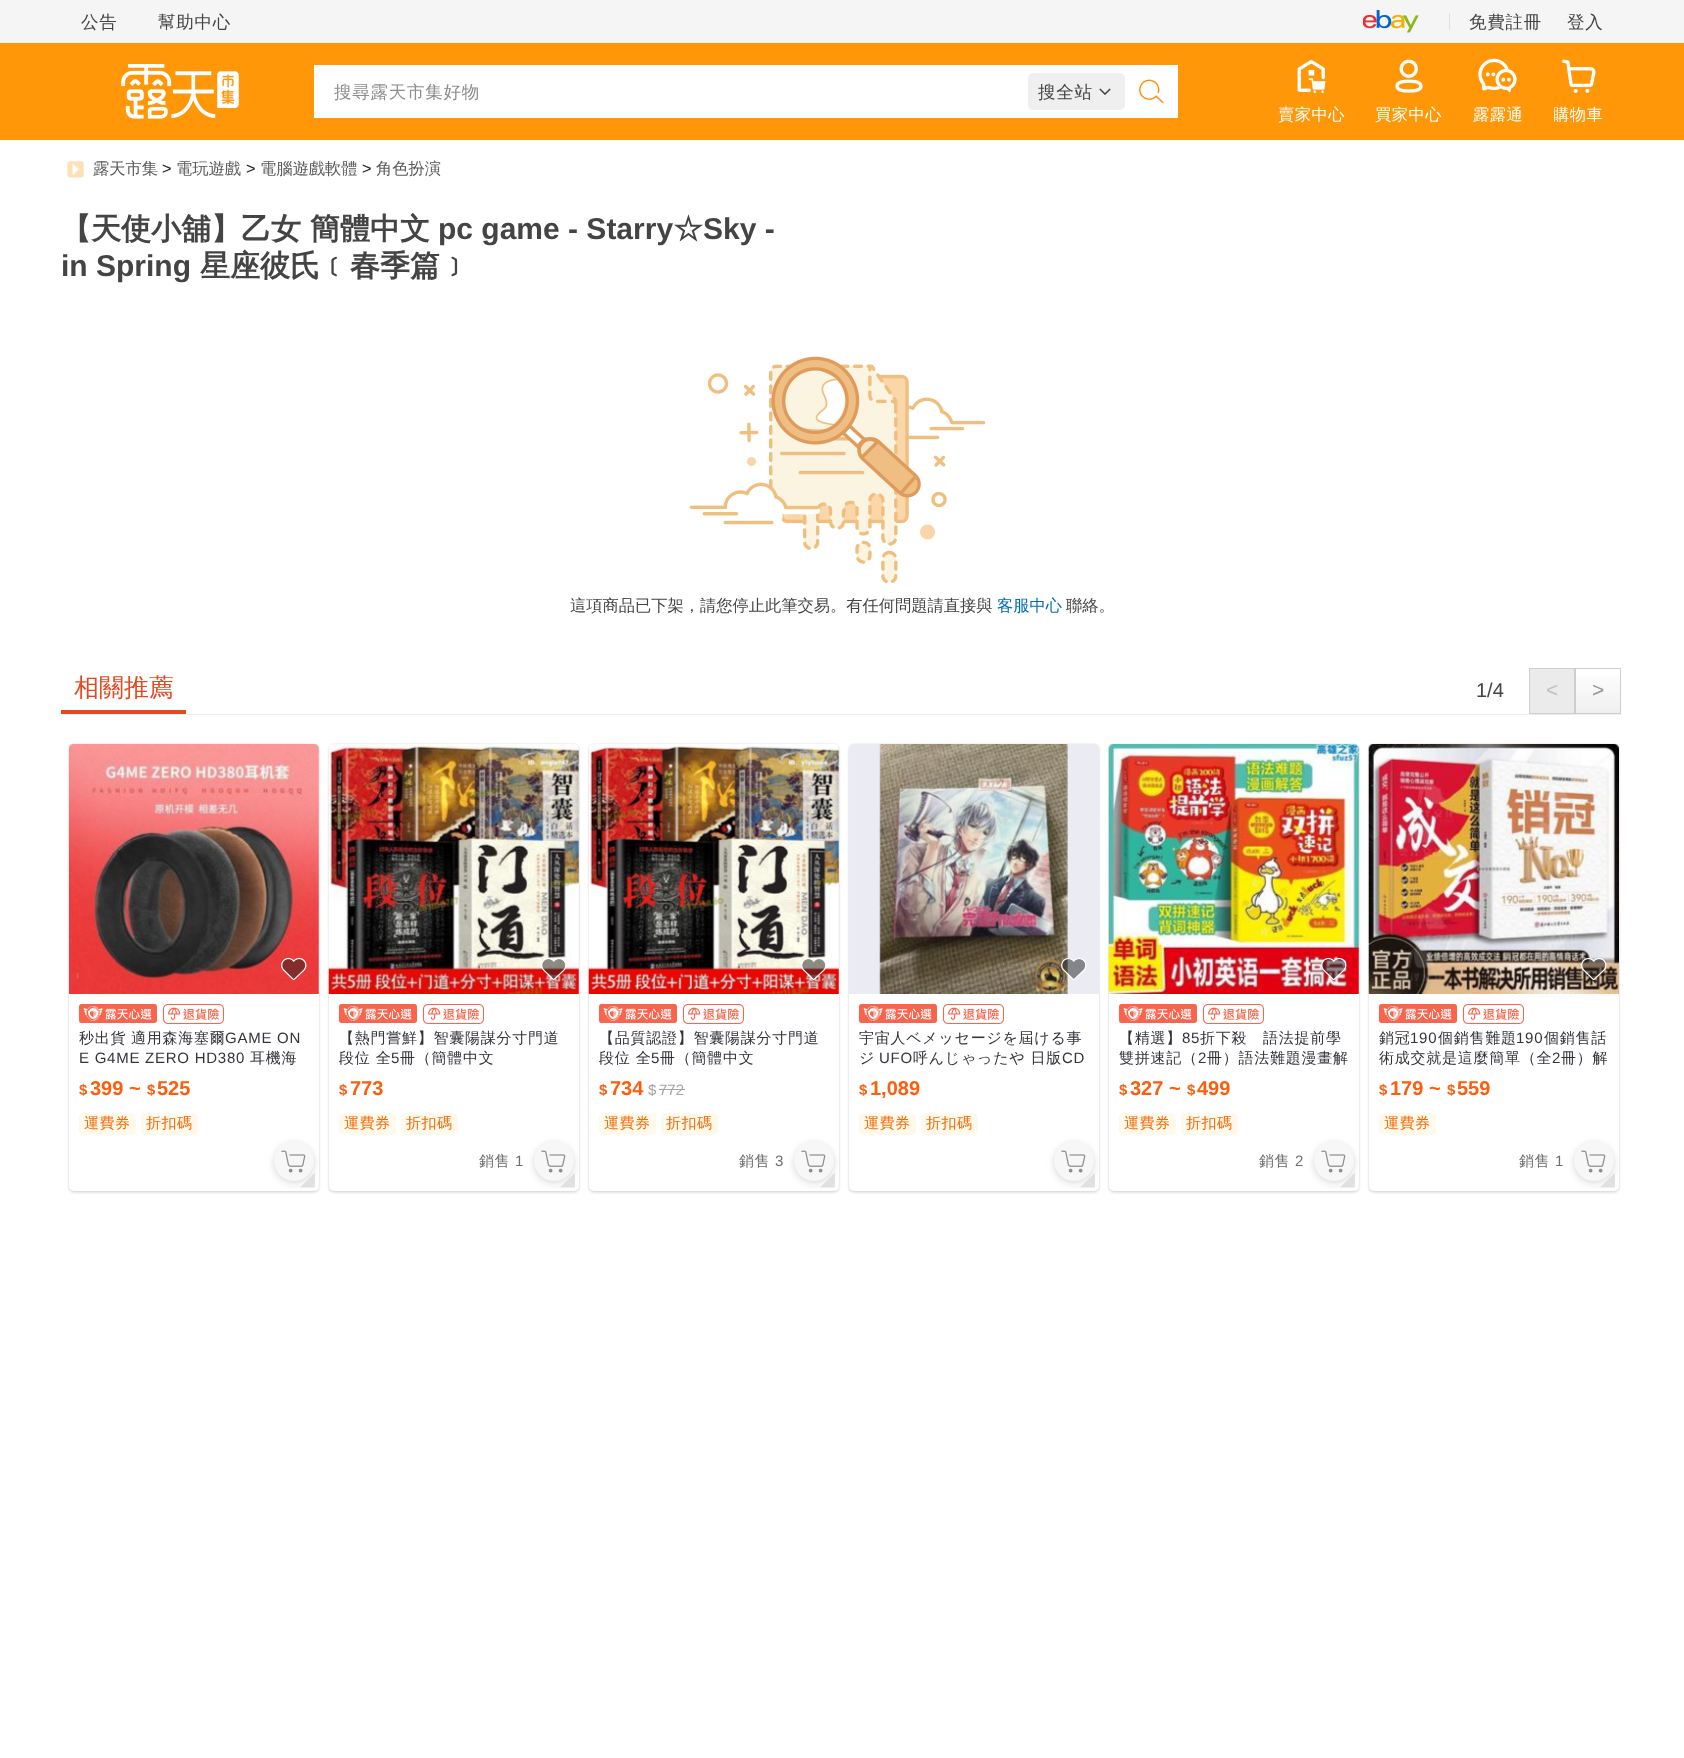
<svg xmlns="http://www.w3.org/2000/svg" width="1684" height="1758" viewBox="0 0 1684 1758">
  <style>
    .t1 { font: 500 17.5px WenQuanYi Zen Hei; letter-spacing: 0.75px; fill: #444; }
    .t2 { font: 500 17.5px WenQuanYi Zen Hei; letter-spacing: 0.75px; fill: #8d8d8d; }
    .t3 { font: 500 16.25px WenQuanYi Zen Hei; letter-spacing: 0.5px; fill: #fff; }
    .t4 { font: 500 16.25px WenQuanYi Zen Hei; fill: #595959; }
    .t5 { font: 16.25px Liberation Sans; fill: #222; }
    .t6 { font: bold 30px WenQuanYi Zen Hei; fill: #444; }
    .t7 { font: bold 30px Liberation Sans; fill: #444; }
    .t8 { font: 500 16.25px WenQuanYi Zen Hei; fill: #444; }
    .t9 { font: 500 16.25px WenQuanYi Zen Hei; fill: #006ab4; }
    .t10 { font: 500 25px WenQuanYi Zen Hei; fill: #e34a20; }
    .t11 { font: 20px Liberation Sans; fill: #444; }
    .t12 { font: 21px Liberation Sans; fill: #c1c1c1; }
    .t13 { font: 21px Liberation Sans; fill: #989898; }
    .t14 { font: 500 15px WenQuanYi Zen Hei; letter-spacing: 0.75px; fill: #33343b; }
    .t15 { font: 15px Liberation Sans; letter-spacing: 0.75px; fill: #33343b; }
    .t16 { font: bold 15px Liberation Sans; fill: #ff5d0e; }
    .t17 { font: bold 20px Liberation Sans; fill: #ff5d0e; }
    .t18 { font: 500 15px WenQuanYi Zen Hei; letter-spacing: 0.5px; fill: #f36b07; }
    .t19 { font: 500 15px WenQuanYi Zen Hei; letter-spacing: 0.5px; fill: #6e6e6e; }
    .t20 { font: 15px Liberation Sans; letter-spacing: 0.5px; fill: #6e6e6e; }
    .t21 { font: 15px Liberation Sans; fill: #a4a4a4; }
  </style>
  <defs>
    <clipPath id="clip1"><rect x="1554" y="104" width="50" height="22"/></clipPath>
    <linearGradient id="g1" gradientUnits="userSpaceOnUse" x1="1598" y1="669" x2="1598" y2="713"><stop offset="0" stop-color="#fff"/><stop offset="1" stop-color="#efefef"/></linearGradient>
  </defs>
  <rect width="100%" height="100%" fill="#fff"/>
  <rect x="0" y="0" width="1684" height="43" fill="#f5f5f5"/>
  <text x="81" y="28" class="t1">公告</text>
  <text x="158" y="28" class="t1">幫助中心</text>
  <image x="1363" y="10" width="56" height="23" href="images/1.png"/>
  <rect x="1449" y="13" width="1" height="17" fill="#e0e0e0"/>
  <text x="1469" y="28" class="t1">免費註冊</text>
  <text x="1567" y="28" class="t1">登入</text>
  <rect x="0" y="43" width="1684" height="97" fill="#ff9709"/>
  <image x="121" y="64" width="118" height="55" href="images/2.png"/>
  <rect x="314" y="65" width="864" height="53" fill="#fff"/>
  <text x="334" y="98" class="t2">搜尋露天市集好物</text>
  <rect x="1028" y="73" width="97" height="37" rx="5" fill="#efefef"/>
  <text x="1038" y="98" class="t1">搜全站</text>
  <image x="1099" y="88" width="12" height="7" href="images/3.png"/>
  <image x="1139" y="79" width="25" height="25" href="images/4.png"/>
  <image x="1297" y="60" width="29" height="33" href="images/5.png"/>
  <text x="1278" y="120" class="t3">賣家中心</text>
  <image x="1395" y="59" width="28" height="34" href="images/6.png"/>
  <text x="1375" y="120" class="t3">買家中心</text>
  <image x="1478" y="58" width="39" height="35" href="images/7.png"/>
  <text x="1473" y="120" class="t3">露露通</text>
  <image x="1562" y="59" width="34" height="34" href="images/8.png"/>
  <g clip-path="url(#clip1)">
    <text x="1553" y="120" class="t3">購物車</text>
  </g>
  <image x="67" y="161" width="17" height="17" href="images/9.png"/>
  <text x="93" y="174" class="t4">露天市集</text>
  <text x="162" y="174" class="t5">&gt;</text>
  <text x="176" y="174" class="t4">電玩遊戲</text>
  <text x="246" y="174" class="t5">&gt;</text>
  <text x="260" y="174" class="t4">電腦遊戲軟體</text>
  <text x="362" y="174" class="t5">&gt;</text>
  <text x="376" y="174" class="t4">角色扮演</text>
  <text x="61" y="239" class="t6">【天使小舖】乙女</text>
  <text x="310" y="239" class="t6">簡體中文</text>
  <text x="438" y="239" class="t7">pc game - Starry</text>
  <text x="673" y="239" class="t6">☆</text>
  <text x="703" y="239" class="t7">Sky -</text>
  <text x="61" y="276" class="t7">in Spring</text>
  <text x="200" y="276" class="t6">星座彼氏﹝春季篇﹞</text>
  <image x="689" y="356" width="297" height="228" href="images/10.png"/>
  <text x="570" y="611" class="t8">這項商品已下架，請您停止此筆交易。有任何問題請直接與</text>
  <text x="997" y="611" class="t9">客服中心</text>
  <text x="1066" y="611" class="t8">聯絡。</text>
  <rect x="61" y="714" width="1560" height="1" fill="#eee"/>
  <rect x="61" y="710" width="125" height="4" fill="#e34a20"/>
  <text x="74" y="696" class="t10">相關推薦</text>
  <text x="1476" y="697" class="t11">1/4</text>
  <rect x="1529.5" y="668.5" width="45" height="45" fill="#ebebeb" stroke="#cecece"/>
  <text x="1546" y="697" class="t12">&lt;</text>
  <rect x="1576" y="676" width="44" height="37" fill="url(#g1)"/>
  <rect x="1575.5" y="668.5" width="45" height="45" fill="none" stroke="#cecece"/>
  <text x="1592" y="697" class="t13">&gt;</text>
  <rect x="69" y="744" width="250" height="447" rx="5" fill="#0000001a" filter="blur(1px)"/>
  <rect x="69" y="745" width="250" height="448" rx="5" fill="#0000001a" filter="blur(1px)"/>
  <rect x="69" y="744" width="250" height="447" rx="5" fill="#fff"/>
  <path d="M74 744H314C317 744 319 746 319 749V994H69V749C69 746 71 744 74 744Z" fill="#ebecf3"/>
  <image x="69" y="744" width="250" height="250" href="images/11.png"/>
  <image x="281" y="957" width="26" height="23" href="images/12.png"/>
  <image x="79" y="1004" width="78" height="19" href="images/13.png"/>
  <image x="163" y="1004" width="61" height="20" href="images/14.png"/>
  <text x="79" y="1043" class="t14">秒出貨</text>
  <text x="131" y="1043" class="t14">適用森海塞爾</text>
  <text x="225" y="1043" class="t15">GAME ON</text>
  <text x="79" y="1063" class="t15">E G4ME ZERO HD380</text>
  <text x="250" y="1063" class="t14">耳機海</text>
  <text x="79" y="1095" class="t16">$</text>
  <text x="90" y="1095" class="t17">399 ~</text>
  <text x="147" y="1095" class="t16">$</text>
  <text x="157" y="1095" class="t17">525</text>
  <rect x="79" y="1113" width="57" height="22" rx="5" fill="#fff9eb"/>
  <text x="84" y="1128" class="t18">運費券</text>
  <rect x="141" y="1113" width="57" height="22" rx="5" fill="#fff9eb"/>
  <text x="146" y="1128" class="t18">折扣碼</text>
  <rect x="275" y="1143" width="38" height="37" rx="18.5" fill="#0000001a" filter="blur(2.5px)"/>
  <rect x="274" y="1144" width="40" height="40" rx="20" fill="#0000001a" filter="blur(4px)"/>
  <circle cx="294" cy="1161" r="20" fill="#f7f7f7"/>
  <image x="281" y="1150" width="25" height="23" href="images/15.png"/>
  <path d="M315 1172.5V1187.5L307.5 1180Z" fill="#e0e0e0"/>
  <path d="M315 1187.5H300L307.5 1180Z" fill="#e0e0e0"/>
  <rect x="329" y="744" width="250" height="447" rx="5" fill="#0000001a" filter="blur(1px)"/>
  <rect x="329" y="745" width="250" height="448" rx="5" fill="#0000001a" filter="blur(1px)"/>
  <rect x="329" y="744" width="250" height="447" rx="5" fill="#fff"/>
  <path d="M334 744H574C577 744 579 746 579 749V994H329V749C329 746 331 744 334 744Z" fill="#ebecf3"/>
  <image x="328" y="744" width="251" height="250" href="images/16.png"/>
  <image x="541" y="957" width="25" height="23" href="images/17.png"/>
  <image x="339" y="1004" width="78" height="19" href="images/13.png"/>
  <image x="423" y="1004" width="61" height="20" href="images/14.png"/>
  <text x="339" y="1043" class="t14">【熱門嘗鮮】智囊陽謀分寸門道</text>
  <text x="339" y="1063" class="t14">段位 全</text>
  <text x="391" y="1063" class="t15">5</text>
  <text x="400" y="1063" class="t14">冊（簡體中文</text>
  <text x="339" y="1095" class="t16">$</text>
  <text x="350" y="1095" class="t17">773</text>
  <rect x="339" y="1113" width="57" height="22" rx="5" fill="#fff9eb"/>
  <text x="344" y="1128" class="t18">運費券</text>
  <rect x="401" y="1113" width="57" height="22" rx="5" fill="#fff9eb"/>
  <text x="406" y="1128" class="t18">折扣碼</text>
  <text x="479" y="1166" class="t19">銷售</text>
  <text x="515" y="1166" class="t20">1</text>
  <rect x="535" y="1143" width="38" height="37" rx="18.5" fill="#0000001a" filter="blur(2.5px)"/>
  <rect x="534" y="1144" width="40" height="40" rx="20" fill="#0000001a" filter="blur(4px)"/>
  <circle cx="554" cy="1161" r="20" fill="#f7f7f7"/>
  <image x="541" y="1150" width="25" height="23" href="images/15.png"/>
  <path d="M575 1172.5V1187.5L567.5 1180Z" fill="#e0e0e0"/>
  <path d="M575 1187.5H560L567.5 1180Z" fill="#e0e0e0"/>
  <rect x="589" y="744" width="250" height="447" rx="5" fill="#0000001a" filter="blur(1px)"/>
  <rect x="589" y="745" width="250" height="448" rx="5" fill="#0000001a" filter="blur(1px)"/>
  <rect x="589" y="744" width="250" height="447" rx="5" fill="#fff"/>
  <path d="M594 744H834C837 744 839 746 839 749V994H589V749C589 746 591 744 594 744Z" fill="#ebecf3"/>
  <image x="588" y="744" width="251" height="250" href="images/18.png"/>
  <image x="801" y="957" width="25" height="23" href="images/19.png"/>
  <image x="599" y="1004" width="78" height="19" href="images/13.png"/>
  <image x="683" y="1004" width="61" height="20" href="images/14.png"/>
  <text x="599" y="1043" class="t14">【品質認證】智囊陽謀分寸門道</text>
  <text x="599" y="1063" class="t14">段位 全</text>
  <text x="651" y="1063" class="t15">5</text>
  <text x="660" y="1063" class="t14">冊（簡體中文</text>
  <text x="599" y="1095" class="t16">$</text>
  <text x="610" y="1095" class="t17">734</text>
  <text x="648" y="1095" class="t21">$</text>
  <text x="659" y="1095" class="t21">772</text>
  <rect x="659" y="1089" width="26" height="1" fill="#a4a4a4"/>
  <rect x="599" y="1113" width="57" height="22" rx="5" fill="#fff9eb"/>
  <text x="604" y="1128" class="t18">運費券</text>
  <rect x="661" y="1113" width="57" height="22" rx="5" fill="#fff9eb"/>
  <text x="666" y="1128" class="t18">折扣碼</text>
  <text x="739" y="1166" class="t19">銷售</text>
  <text x="775" y="1166" class="t20">3</text>
  <rect x="795" y="1143" width="38" height="37" rx="18.5" fill="#0000001a" filter="blur(2.5px)"/>
  <rect x="794" y="1144" width="40" height="40" rx="20" fill="#0000001a" filter="blur(4px)"/>
  <circle cx="814" cy="1161" r="20" fill="#f7f7f7"/>
  <image x="801" y="1150" width="25" height="23" href="images/15.png"/>
  <path d="M835 1172.5V1187.5L827.5 1180Z" fill="#e0e0e0"/>
  <path d="M835 1187.5H820L827.5 1180Z" fill="#e0e0e0"/>
  <rect x="849" y="744" width="250" height="447" rx="5" fill="#0000001a" filter="blur(1px)"/>
  <rect x="849" y="745" width="250" height="448" rx="5" fill="#0000001a" filter="blur(1px)"/>
  <rect x="849" y="744" width="250" height="447" rx="5" fill="#fff"/>
  <path d="M854 744H1094C1097 744 1099 746 1099 749V994H849V749C849 746 851 744 854 744Z" fill="#ebecf3"/>
  <image x="879" y="744" width="189" height="250" href="images/20.png"/>
  <image x="1061" y="958" width="26" height="22" href="images/21.png"/>
  <image x="859" y="1004" width="78" height="19" href="images/13.png"/>
  <image x="943" y="1004" width="61" height="20" href="images/14.png"/>
  <text x="859" y="1043" class="t14">宇宙人ベメッセージを屆ける事</text>
  <text x="859" y="1063" class="t14">ジ</text>
  <text x="879" y="1063" class="t15">UFO</text>
  <text x="913" y="1063" class="t14">呼んじゃったや 日版</text>
  <text x="1062" y="1063" class="t15">CD</text>
  <text x="859" y="1095" class="t16">$</text>
  <text x="870" y="1095" class="t17">1,089</text>
  <rect x="859" y="1113" width="57" height="22" rx="5" fill="#fff9eb"/>
  <text x="864" y="1128" class="t18">運費券</text>
  <rect x="921" y="1113" width="57" height="22" rx="5" fill="#fff9eb"/>
  <text x="926" y="1128" class="t18">折扣碼</text>
  <rect x="1055" y="1143" width="38" height="37" rx="18.5" fill="#0000001a" filter="blur(2.5px)"/>
  <rect x="1054" y="1144" width="40" height="40" rx="20" fill="#0000001a" filter="blur(4px)"/>
  <circle cx="1074" cy="1161" r="20" fill="#f7f7f7"/>
  <image x="1061" y="1150" width="25" height="23" href="images/15.png"/>
  <path d="M1095 1172.5V1187.5L1087.5 1180Z" fill="#e0e0e0"/>
  <path d="M1095 1187.5H1080L1087.5 1180Z" fill="#e0e0e0"/>
  <rect x="1109" y="744" width="250" height="447" rx="5" fill="#0000001a" filter="blur(1px)"/>
  <rect x="1109" y="745" width="250" height="448" rx="5" fill="#0000001a" filter="blur(1px)"/>
  <rect x="1109" y="744" width="250" height="447" rx="5" fill="#fff"/>
  <path d="M1114 744H1354C1357 744 1359 746 1359 749V994H1109V749C1109 746 1111 744 1114 744Z" fill="#ebecf3"/>
  <image x="1108" y="744" width="251" height="250" href="images/22.png"/>
  <image x="1321" y="957" width="26" height="23" href="images/23.png"/>
  <image x="1119" y="1004" width="78" height="19" href="images/13.png"/>
  <image x="1203" y="1004" width="61" height="20" href="images/14.png"/>
  <text x="1119" y="1043" class="t14">【精選】</text>
  <text x="1182" y="1043" class="t15">85</text>
  <text x="1200" y="1043" class="t14">折下殺　語法提前學</text>
  <text x="1119" y="1063" class="t14">雙拼速記（</text>
  <text x="1198" y="1063" class="t15">2</text>
  <text x="1207" y="1063" class="t14">冊）語法難題漫畫解</text>
  <text x="1119" y="1095" class="t16">$</text>
  <text x="1130" y="1095" class="t17">327 ~</text>
  <text x="1187" y="1095" class="t16">$</text>
  <text x="1197" y="1095" class="t17">499</text>
  <rect x="1119" y="1113" width="57" height="22" rx="5" fill="#fff9eb"/>
  <text x="1124" y="1128" class="t18">運費券</text>
  <rect x="1181" y="1113" width="57" height="22" rx="5" fill="#fff9eb"/>
  <text x="1186" y="1128" class="t18">折扣碼</text>
  <text x="1259" y="1166" class="t19">銷售</text>
  <text x="1295" y="1166" class="t20">2</text>
  <rect x="1315" y="1143" width="38" height="37" rx="18.5" fill="#0000001a" filter="blur(2.5px)"/>
  <rect x="1314" y="1144" width="40" height="40" rx="20" fill="#0000001a" filter="blur(4px)"/>
  <circle cx="1334" cy="1161" r="20" fill="#f7f7f7"/>
  <image x="1321" y="1150" width="25" height="23" href="images/15.png"/>
  <path d="M1355 1172.5V1187.5L1347.5 1180Z" fill="#e0e0e0"/>
  <path d="M1355 1187.5H1340L1347.5 1180Z" fill="#e0e0e0"/>
  <rect x="1369" y="744" width="250" height="447" rx="5" fill="#0000001a" filter="blur(1px)"/>
  <rect x="1369" y="745" width="250" height="448" rx="5" fill="#0000001a" filter="blur(1px)"/>
  <rect x="1369" y="744" width="250" height="447" rx="5" fill="#fff"/>
  <image x="1368" y="744" width="251" height="250" href="images/24.png"/>
  <image x="1581" y="957" width="26" height="23" href="images/25.png"/>
  <image x="1379" y="1004" width="78" height="19" href="images/13.png"/>
  <image x="1463" y="1004" width="61" height="20" href="images/14.png"/>
  <text x="1379" y="1043" class="t14">銷冠</text>
  <text x="1410" y="1043" class="t15">190</text>
  <text x="1438" y="1043" class="t14">個銷售難題</text>
  <text x="1516" y="1043" class="t15">190</text>
  <text x="1544" y="1043" class="t14">個銷售話</text>
  <text x="1379" y="1063" class="t14">術成交就是這麼簡單（全</text>
  <text x="1552" y="1063" class="t15">2</text>
  <text x="1561" y="1063" class="t14">冊）解</text>
  <text x="1379" y="1095" class="t16">$</text>
  <text x="1390" y="1095" class="t17">179 ~</text>
  <text x="1447" y="1095" class="t16">$</text>
  <text x="1457" y="1095" class="t17">559</text>
  <rect x="1379" y="1113" width="57" height="22" rx="5" fill="#fff9eb"/>
  <text x="1384" y="1128" class="t18">運費券</text>
  <text x="1519" y="1166" class="t19">銷售</text>
  <text x="1555" y="1166" class="t20">1</text>
  <rect x="1575" y="1143" width="38" height="37" rx="18.5" fill="#0000001a" filter="blur(2.5px)"/>
  <rect x="1574" y="1144" width="40" height="40" rx="20" fill="#0000001a" filter="blur(4px)"/>
  <circle cx="1594" cy="1161" r="20" fill="#f7f7f7"/>
  <image x="1581" y="1150" width="25" height="23" href="images/15.png"/>
  <path d="M1615 1172.5V1187.5L1607.5 1180Z" fill="#e0e0e0"/>
  <path d="M1615 1187.5H1600L1607.5 1180Z" fill="#e0e0e0"/>
</svg>
